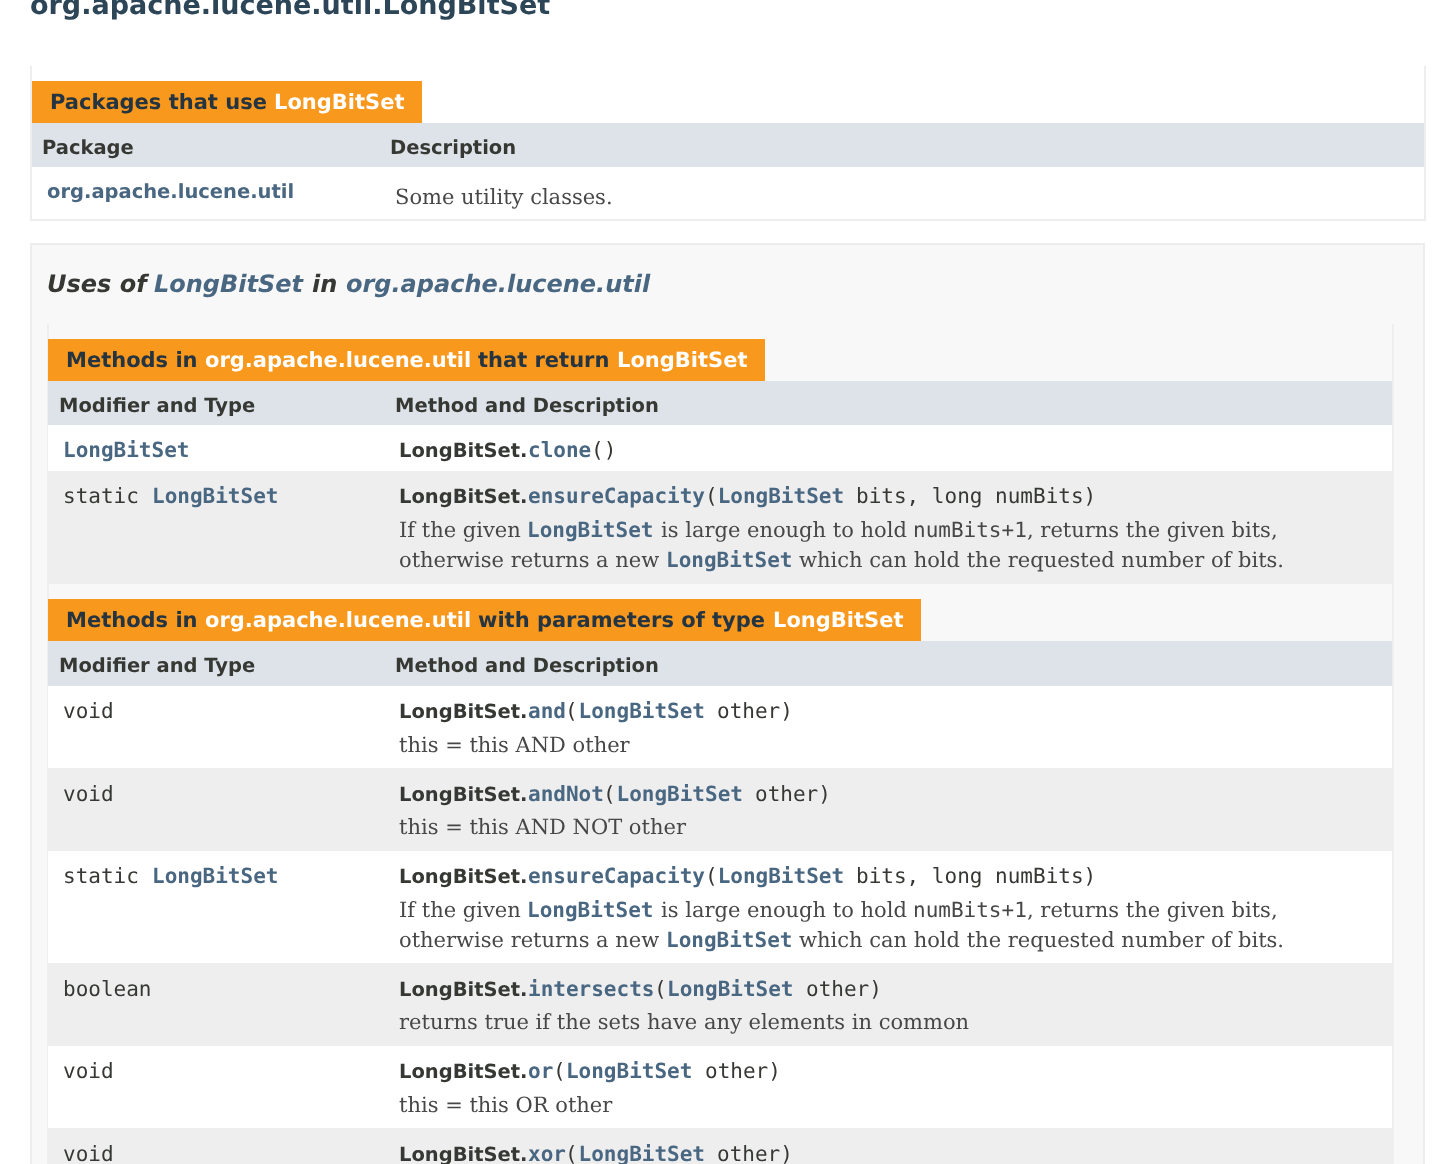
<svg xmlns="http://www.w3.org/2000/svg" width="1454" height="1164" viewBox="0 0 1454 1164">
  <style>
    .t1 { font: bold 27px DejaVu Sans; fill: #2c4557; }
    .t2 { font: bold 21px DejaVu Sans; fill: #253441; }
    .t3 { font: bold 21px DejaVu Sans; fill: #fff; }
    .t4 { font: bold 19.5px DejaVu Sans; fill: #353833; }
    .t5 { font: bold 19.5px DejaVu Sans; fill: #4a6782; }
    .t6 { font: 21px DejaVu Serif; fill: #474747; }
    .t7 { font: italic bold 24px DejaVu Sans; fill: #353833; }
    .t8 { font: italic bold 24px DejaVu Sans; fill: #4a6782; }
    .t9 { font: bold 21px DejaVu Sans Mono; fill: #4a6782; }
    .t10 { font: 21px DejaVu Sans Mono; fill: #353833; }
    .t11 { font: 21px DejaVu Sans Mono; fill: #474747; }
  </style>
  <rect width="100%" height="100%" fill="#fff"/>
  <text x="30" y="14" class="t1">org.apache.lucene.util.LongBitSet</text>
  <rect x="1424" y="66" width="2" height="155" fill="#eee"/>
  <rect x="30" y="219" width="1395" height="2" fill="#eee"/>
  <rect x="30" y="66" width="2" height="155" fill="#eee"/>
  <rect x="32" y="81" width="390" height="42" fill="#f8981d"/>
  <text x="50" y="109" class="t2">Packages that use</text>
  <text x="274" y="109" class="t3">LongBitSet</text>
  <rect x="32" y="123" width="1392" height="44" fill="#dee3e9"/>
  <text x="42" y="154" class="t4">Package</text>
  <text x="390" y="154" class="t4">Description</text>
  <text x="47" y="198" class="t5">org.apache.lucene.util</text>
  <text x="395" y="204" class="t6">Some utility classes.</text>
  <rect x="31" y="244" width="1393" height="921" fill="#f8f8f8" stroke="#ededed" stroke-width="2"/>
  <text x="47" y="292" class="t7">Uses of</text>
  <text x="154" y="292" class="t8">LongBitSet</text>
  <text x="312" y="292" class="t7">in</text>
  <text x="346" y="292" class="t8">org.apache.lucene.util</text>
  <rect x="1392" y="324" width="2" height="840" fill="#eee"/>
  <rect x="47" y="582" width="1347" height="2" fill="#eee"/>
  <rect x="47" y="324" width="2" height="840" fill="#eee"/>
  <rect x="48" y="339" width="717" height="42" fill="#f8981d"/>
  <text x="66" y="367" class="t2">Methods in</text>
  <text x="205" y="367" class="t3">org.apache.lucene.util</text>
  <text x="478" y="367" class="t2">that return</text>
  <text x="617" y="367" class="t3">LongBitSet</text>
  <rect x="48" y="381" width="1344" height="44" fill="#dee3e9"/>
  <text x="59" y="412" class="t4">Modifier and Type</text>
  <text x="395" y="412" class="t4">Method and Description</text>
  <rect x="48" y="425" width="1344" height="46" fill="#fff"/>
  <text x="63" y="457" class="t9">LongBitSet</text>
  <text x="399" y="457" class="t4">LongBitSet.</text>
  <text x="528" y="457" class="t9">clone</text>
  <text x="591" y="457" class="t10">()</text>
  <rect x="49" y="471" width="1343" height="111" fill="#eeeeef"/>
  <text x="63" y="503" class="t10">static</text>
  <text x="152" y="503" class="t9">LongBitSet</text>
  <text x="528" y="503" class="t9">ensureCapacity LongBitSet</text>
  <text x="856" y="503" class="t10">bits, long numBits)</text>
  <text x="399" y="503" class="t4">LongBitSet.</text>
  <text x="705" y="503" class="t10">(</text>
  <text x="399" y="537" class="t6">If the given</text>
  <text x="527" y="537" class="t9">LongBitSet</text>
  <text x="661" y="537" class="t6">is large enough to hold</text>
  <text x="913" y="537" class="t11">numBits+1</text>
  <text x="1027" y="537" class="t6">, returns the given bits,</text>
  <text x="399" y="567" class="t6">otherwise returns a new</text>
  <text x="666" y="567" class="t9">LongBitSet</text>
  <text x="799" y="567" class="t6">which can hold the requested number of bits.</text>
  <rect x="48" y="599" width="873" height="42" fill="#f8981d"/>
  <text x="66" y="627" class="t2">Methods in</text>
  <text x="205" y="627" class="t3">org.apache.lucene.util</text>
  <text x="478" y="627" class="t2">with parameters of type</text>
  <text x="773" y="627" class="t3">LongBitSet</text>
  <rect x="48" y="641" width="1344" height="45" fill="#dee3e9"/>
  <text x="59" y="672" class="t4">Modifier and Type</text>
  <text x="395" y="672" class="t4">Method and Description</text>
  <rect x="48" y="686" width="1344" height="82" fill="#fff"/>
  <text x="63" y="718" class="t10">void</text>
  <text x="528" y="718" class="t9">and LongBitSet</text>
  <text x="399" y="718" class="t4">LongBitSet.</text>
  <text x="565" y="718" class="t10">(</text>
  <text x="717" y="718" class="t10">other)</text>
  <text x="399" y="752" class="t6">this = this AND other</text>
  <rect x="49" y="768" width="1343" height="83" fill="#eeeeef"/>
  <text x="63" y="801" class="t10">void</text>
  <text x="528" y="801" class="t9">andNot LongBitSet</text>
  <text x="399" y="801" class="t4">LongBitSet.</text>
  <text x="603" y="801" class="t10">(</text>
  <text x="755" y="801" class="t10">other)</text>
  <text x="399" y="834" class="t6">this = this AND NOT other</text>
  <rect x="48" y="851" width="1344" height="112" fill="#fff"/>
  <text x="63" y="883" class="t10">static</text>
  <text x="152" y="883" class="t9">LongBitSet</text>
  <text x="528" y="883" class="t9">ensureCapacity LongBitSet</text>
  <text x="856" y="883" class="t10">bits, long numBits)</text>
  <text x="399" y="883" class="t4">LongBitSet.</text>
  <text x="705" y="883" class="t10">(</text>
  <text x="399" y="917" class="t6">If the given</text>
  <text x="527" y="917" class="t9">LongBitSet</text>
  <text x="661" y="917" class="t6">is large enough to hold</text>
  <text x="913" y="917" class="t11">numBits+1</text>
  <text x="1027" y="917" class="t6">, returns the given bits,</text>
  <text x="399" y="947" class="t6">otherwise returns a new</text>
  <text x="666" y="947" class="t9">LongBitSet</text>
  <text x="799" y="947" class="t6">which can hold the requested number of bits.</text>
  <rect x="49" y="963" width="1343" height="83" fill="#eeeeef"/>
  <text x="63" y="996" class="t10">boolean</text>
  <text x="528" y="996" class="t9">intersects LongBitSet</text>
  <text x="399" y="996" class="t4">LongBitSet.</text>
  <text x="654" y="996" class="t10">(</text>
  <text x="806" y="996" class="t10">other)</text>
  <text x="399" y="1029" class="t6">returns true if the sets have any elements in common</text>
  <rect x="48" y="1046" width="1344" height="82" fill="#fff"/>
  <text x="63" y="1078" class="t10">void</text>
  <text x="528" y="1078" class="t9">or LongBitSet</text>
  <text x="399" y="1078" class="t4">LongBitSet.</text>
  <text x="553" y="1078" class="t10">(</text>
  <text x="705" y="1078" class="t10">other)</text>
  <text x="399" y="1112" class="t6">this = this OR other</text>
  <rect x="49" y="1128" width="1343" height="36" fill="#eeeeef"/>
  <text x="63" y="1161" class="t10">void</text>
  <text x="528" y="1161" class="t9">xor LongBitSet</text>
  <text x="399" y="1161" class="t4">LongBitSet.</text>
  <text x="565" y="1161" class="t10">(</text>
  <text x="717" y="1161" class="t10">other)</text>
</svg>
